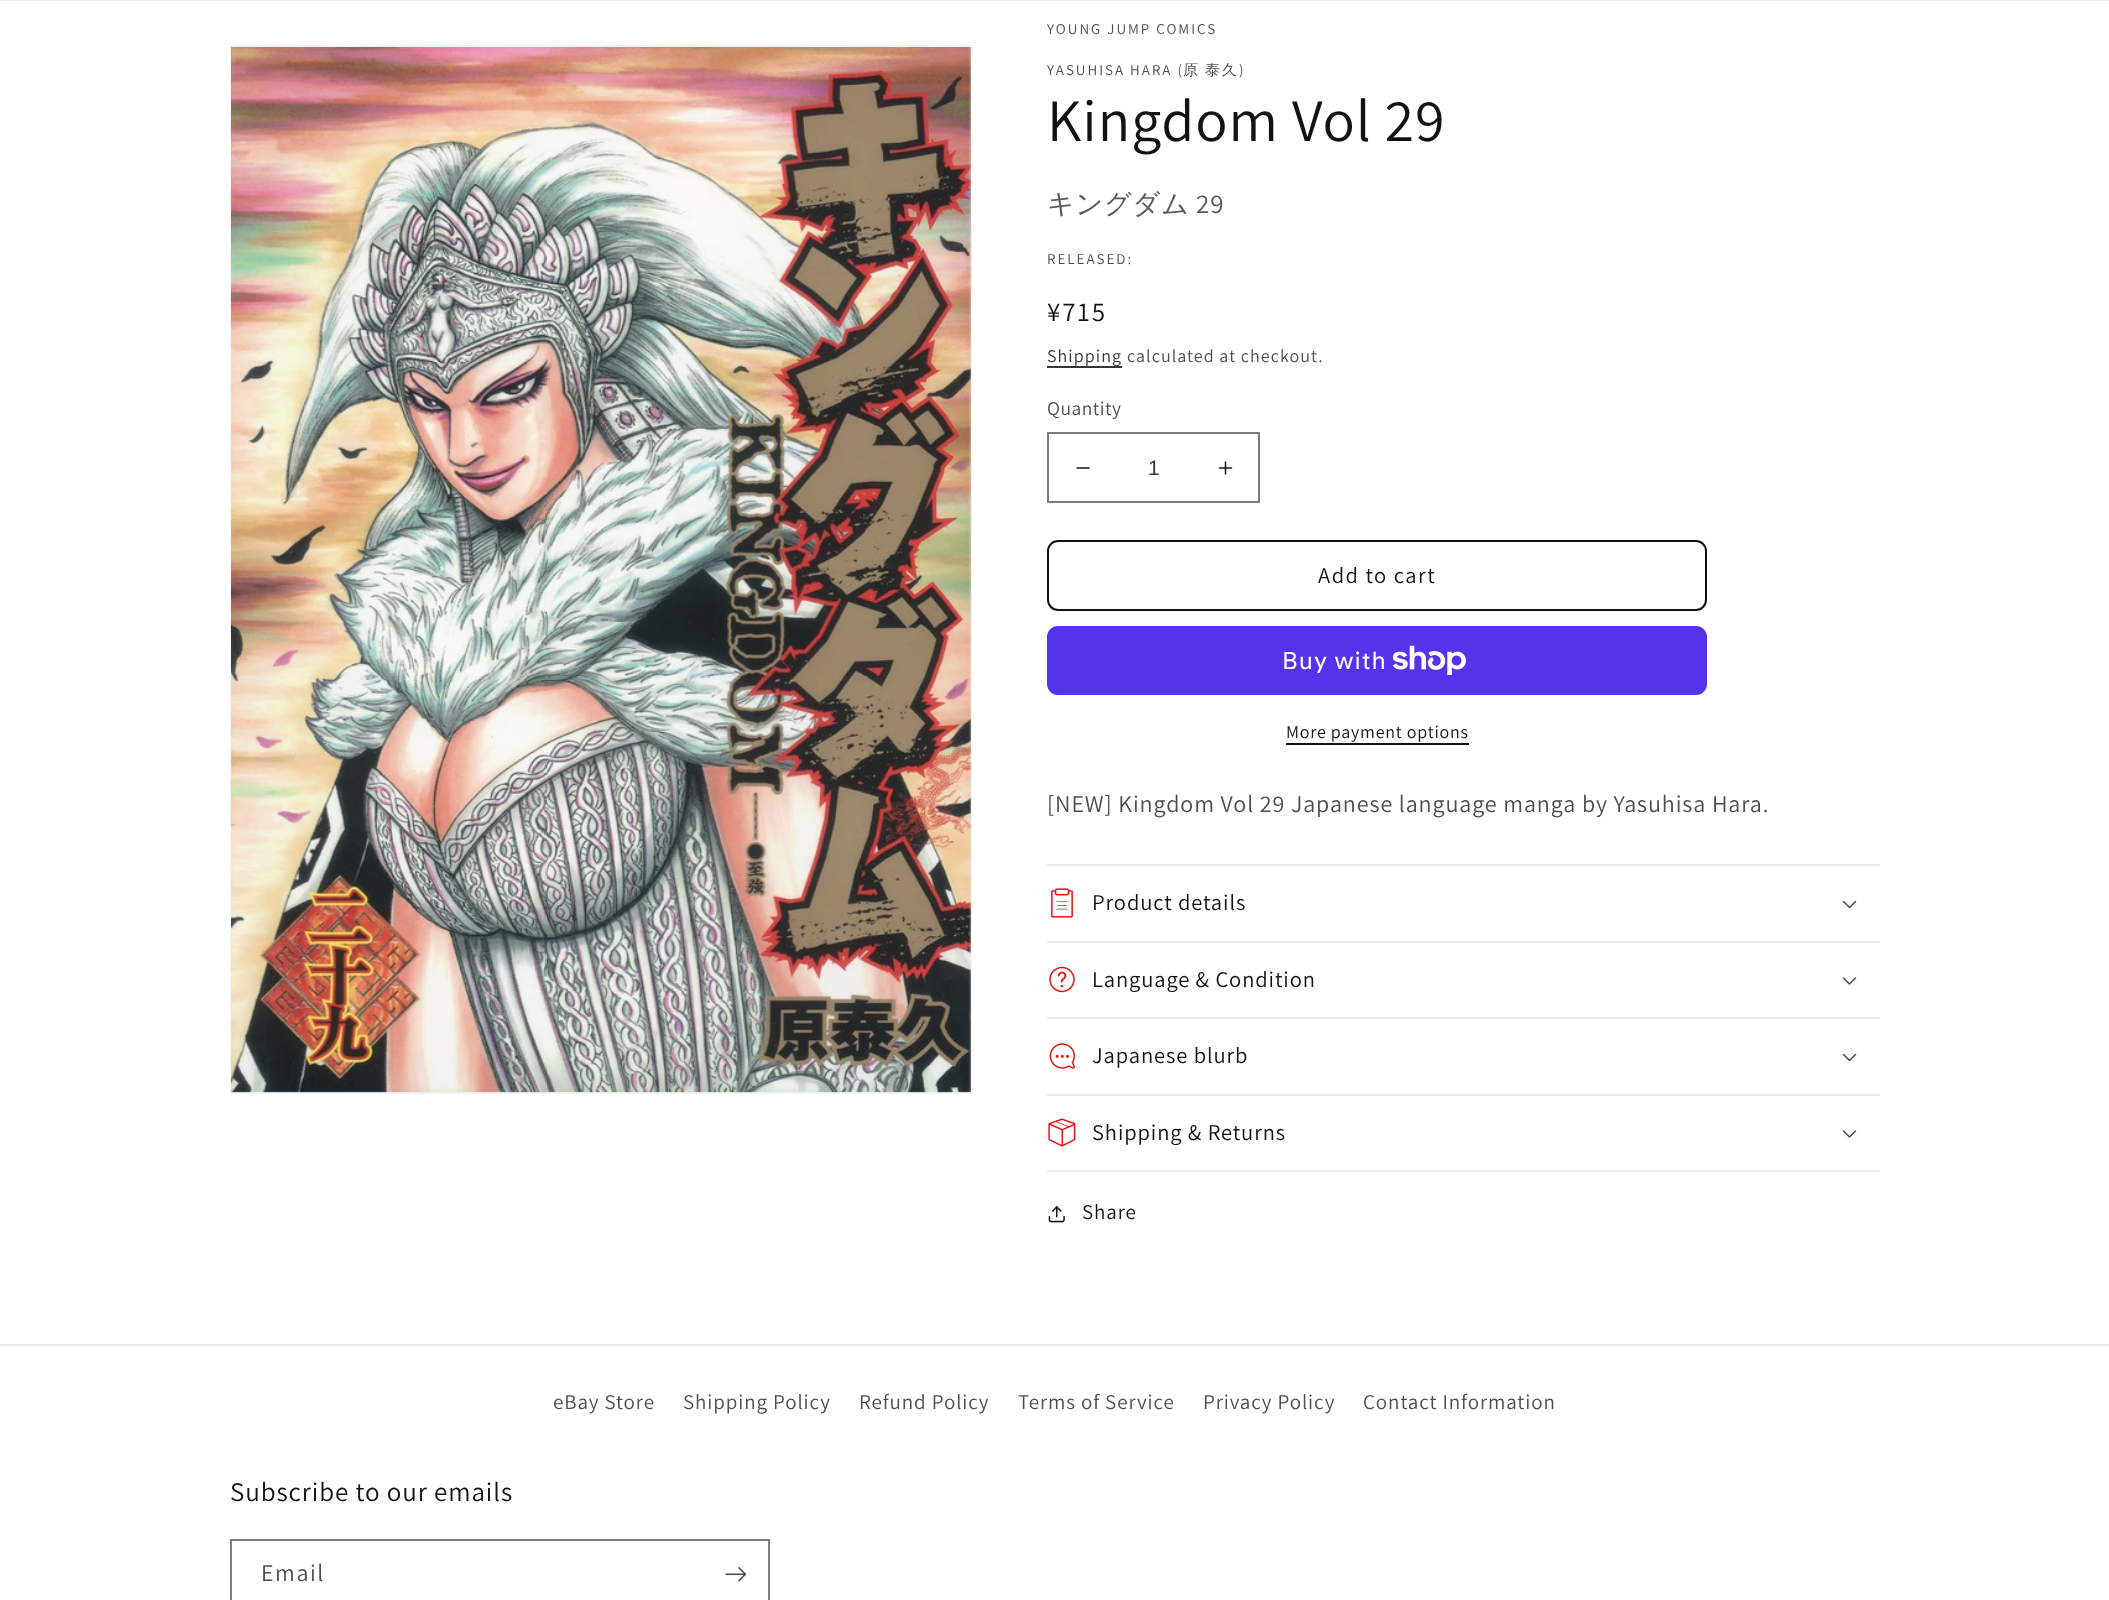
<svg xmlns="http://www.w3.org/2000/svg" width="2109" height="1600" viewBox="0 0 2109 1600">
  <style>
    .t1 { font: 15px Assistant; letter-spacing: 2px; fill: #4d4d4d; }
    .t2 { font: 500 15px WenQuanYi Zen Hei; letter-spacing: 2px; fill: #4d4d4d; }
    .t3 { font: 60px Assistant; letter-spacing: 0.9px; fill: #121212; }
    .t4 { font: 500 27px WenQuanYi Zen Hei; letter-spacing: 0.9px; fill: #595959; }
    .t5 { font: 27px Assistant; letter-spacing: 0.9px; fill: #595959; }
    .t6 { font: 27px Assistant; letter-spacing: 2px; fill: #121212; }
    .t7 { font: 18px Assistant; letter-spacing: 1.05px; fill: #353535; }
    .t8 { font: 18px Assistant; letter-spacing: 1.05px; fill: #4d4d4d; }
    .t9 { font: 19.5px Assistant; letter-spacing: 0.5px; fill: #4d4d4d; }
    .t10 { font: 21px Liberation Sans; fill: #353535; }
    .t11 { font: 22.5px Assistant; letter-spacing: 1.5px; fill: #121212; }
    .t12 { font: 24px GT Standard; letter-spacing: 0.9px; fill: #fff; }
    .t13 { font: 18px Assistant; letter-spacing: 0.75px; fill: #121212; }
    .t14 { font: 24px Assistant; letter-spacing: 0.9px; fill: #4d4d4d; }
    .t15 { font: 22.5px Assistant; letter-spacing: 0.9px; fill: #121212; }
    .t16 { font: 21px Assistant; letter-spacing: 0.9px; fill: #121212; }
    .t17 { font: 21px Assistant; letter-spacing: 0.9px; fill: #4d4d4d; }
    .t18 { font: 27px Assistant; letter-spacing: 0.9px; fill: #121212; }
    .t19 { font: 24px Assistant; letter-spacing: 1.5px; fill: #4d4d4d; }
  </style>
  <rect width="100%" height="100%" fill="#fff"/>
  <rect x="0" y="0" width="2109" height="1" fill="#ececec"/>
  <rect x="231" y="46" width="740" height="1047" fill="none" stroke="#f3f3f3" stroke-width="2"/>
  <image x="231" y="47" width="740" height="1046" href="images/1.png"/>
  <text x="1047" y="34" class="t1">YOUNG JUMP COMICS</text>
  <text x="1047" y="75" class="t1">YASUHISA HARA (</text>
  <text x="1183" y="75" class="t2">原</text>
  <text x="1205" y="75" class="t2">泰久</text>
  <text x="1239" y="75" class="t1">)</text>
  <text x="1047" y="141" class="t3">Kingdom Vol 29</text>
  <text x="1047" y="213" class="t4">キングダム</text>
  <text x="1196" y="213" class="t5">29</text>
  <text x="1047" y="264" class="t1">RELEASED:</text>
  <text x="1047" y="321" class="t6">¥715</text>
  <rect x="1047" y="366" width="75" height="2" fill="#363636"/>
  <text x="1047" y="362" class="t7">Shipping</text>
  <text x="1127" y="362" class="t8">calculated at checkout.</text>
  <text x="1047" y="415" class="t9">Quantity</text>
  <image x="1076" y="467" width="14" height="2" href="images/2.png"/>
  <image x="1218" y="461" width="15" height="14" href="images/3.png"/>
  <rect x="1048" y="433" width="211" height="69" fill="none" stroke="#7d7d7d" stroke-width="2"/>
  <text x="1148" y="475" class="t10">1</text>
  <rect x="1048" y="541" width="658" height="69" rx="10" fill="none" stroke="#121212" stroke-width="2"/>
  <text x="1318" y="583" class="t11">Add to cart</text>
  <rect x="1047" y="626" width="660" height="69" rx="11" fill="#5433eb"/>
  <text x="1282" y="669" class="t12">Buy with</text>
  <image x="1392" y="645" width="74" height="30" href="images/4.png"/>
  <text x="1286" y="738" class="t13">More payment options</text>
  <rect x="1286" y="743" width="183" height="2" fill="#121212"/>
  <text x="1047" y="812" class="t14">[NEW] Kingdom Vol 29 Japanese language manga by Yasuhisa Hara.</text>
  <rect x="1047" y="864" width="833" height="2" fill="#ececec"/>
  <rect x="1047" y="941" width="833" height="2" fill="#ececec"/>
  <image x="1051" y="888" width="22" height="30" href="images/5.png"/>
  <text x="1092" y="910" class="t15">Product details</text>
  <image x="1842" y="900" width="15" height="9" href="images/6.png"/>
  <rect x="1047" y="1017" width="833" height="2" fill="#ececec"/>
  <image x="1049" y="966" width="26" height="27" href="images/7.png"/>
  <text x="1092" y="987" class="t15">Language &amp; Condition</text>
  <image x="1842" y="977" width="15" height="8" href="images/8.png"/>
  <rect x="1047" y="1094" width="833" height="2" fill="#ececec"/>
  <image x="1049" y="1043" width="26" height="26" href="images/9.png"/>
  <text x="1092" y="1063" class="t15">Japanese blurb</text>
  <image x="1842" y="1053" width="15" height="9" href="images/6.png"/>
  <rect x="1047" y="1170" width="833" height="2" fill="#ececec"/>
  <image x="1048" y="1118" width="28" height="29" href="images/10.png"/>
  <text x="1092" y="1140" class="t15">Shipping &amp; Returns</text>
  <image x="1842" y="1130" width="15" height="8" href="images/8.png"/>
  <image x="1048" y="1206" width="17" height="17" href="images/11.png"/>
  <text x="1082" y="1219" class="t16">Share</text>
  <rect x="0" y="1344" width="2109" height="2" fill="#ececec"/>
  <text x="553" y="1409" class="t17">eBay Store</text>
  <text x="683" y="1409" class="t17">Shipping Policy</text>
  <text x="859" y="1409" class="t17">Refund Policy</text>
  <text x="1018" y="1409" class="t17">Terms of Service</text>
  <text x="1203" y="1409" class="t17">Privacy Policy</text>
  <text x="1363" y="1409" class="t17">Contact Information</text>
  <text x="230" y="1501" class="t18">Subscribe to our emails</text>
  <rect x="231" y="1540" width="538" height="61" fill="none" stroke="#7d7d7d" stroke-width="2"/>
  <text x="261" y="1581" class="t19">Email</text>
  <image x="725" y="1567" width="22" height="15" href="images/12.png"/>
</svg>
